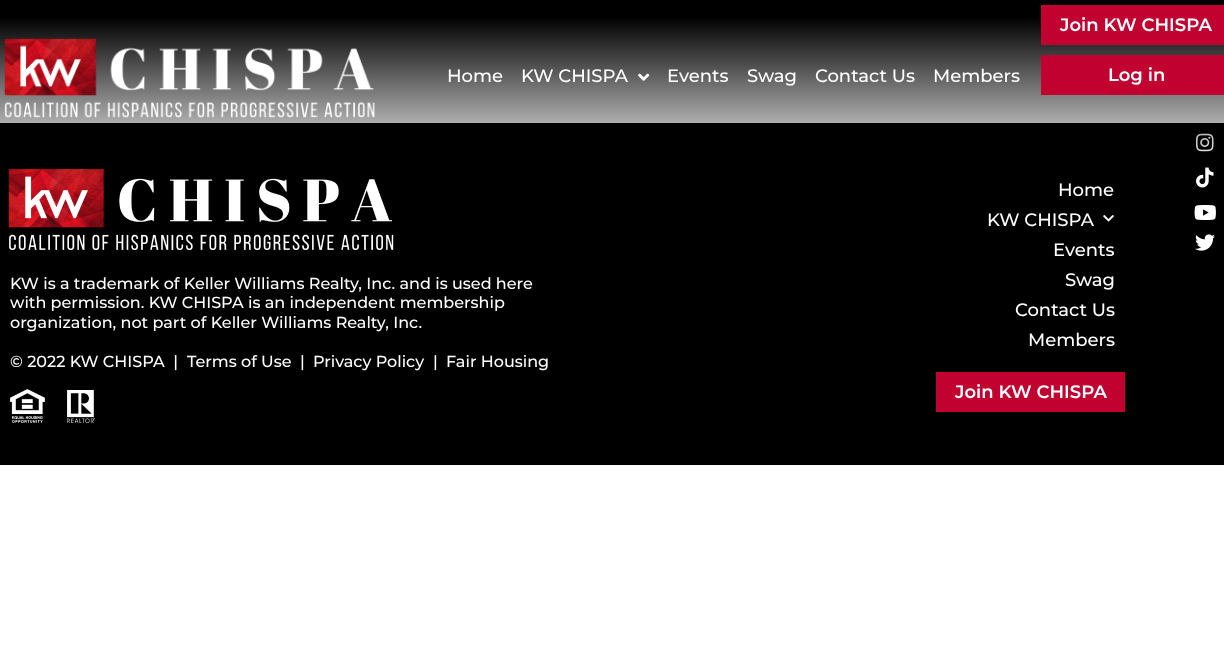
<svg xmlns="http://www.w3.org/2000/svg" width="1224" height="656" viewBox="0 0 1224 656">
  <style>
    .t1 { font: 500 18px Montserrat; fill: #fff; }
    .t2 { font: 600 18px Montserrat; fill: #fff; }
    .t3 { font: 500 16px Montserrat; fill: #fff; }
  </style>
  <defs>
    <linearGradient id="g1" gradientUnits="userSpaceOnUse" x1="612" y1="0" x2="612" y2="173"><stop offset="0.1" stop-color="#000"/><stop offset="1" stop-color="#000" stop-opacity="0"/></linearGradient>
  </defs>
  <rect width="100%" height="100%" fill="#fff"/>
  <rect x="0" y="123" width="1224" height="342" fill="#000"/>
  <image x="8" y="169" width="386" height="81" href="images/3.png"/>
  <image x="1196" y="133" width="18" height="19" href="images/6.png"/>
  <image x="1196" y="167" width="18" height="21" href="images/7.png"/>
  <rect x="0" y="0" width="1224" height="170" fill="url(#g1)"/>
  <image x="4" y="38" width="371" height="80" href="images/1.png"/>
  <text x="447" y="82" class="t1">Home</text>
  <text x="521" y="82" class="t1">KW CHISPA</text>
  <image x="638" y="73" width="12" height="8" href="images/2.png"/>
  <text x="667" y="82" class="t1">Events</text>
  <text x="747" y="82" class="t1">Swag</text>
  <text x="815" y="82" class="t1">Contact Us</text>
  <text x="933" y="82" class="t1">Members</text>
  <rect x="1041" y="5" width="183" height="40" fill="#c10230"/>
  <text x="1060" y="31" class="t2">Join KW CHISPA</text>
  <rect x="1041" y="55" width="183" height="40" fill="#c10230"/>
  <text x="1108" y="81" class="t2">Log in</text>
  <text x="10" y="289" class="t3">KW is a trademark of Keller Williams Realty, Inc. and is used here</text>
  <text x="10" y="308" class="t3">with permission. KW CHISPA is an independent membership</text>
  <text x="10" y="328" class="t3">organization, not part of Keller Williams Realty, Inc.</text>
  <text x="10" y="367" class="t3" xml:space="preserve">© 2022 KW CHISPA  |</text>
  <text x="187" y="367" class="t3">Terms of Use</text>
  <text x="300" y="367" class="t3">|</text>
  <text x="313" y="367" class="t3">Privacy Policy</text>
  <text x="433" y="367" class="t3">|</text>
  <text x="446" y="367" class="t3">Fair Housing</text>
  <image x="10" y="389" width="85" height="34" href="images/4.png"/>
  <text x="1058" y="196" class="t1">Home</text>
  <text x="987" y="226" class="t1">KW CHISPA</text>
  <image x="1103" y="215" width="11" height="7" href="images/5.png"/>
  <text x="1053" y="256" class="t1">Events</text>
  <text x="1065" y="286" class="t1">Swag</text>
  <text x="1015" y="316" class="t1">Contact Us</text>
  <text x="1028" y="346" class="t1">Members</text>
  <rect x="936" y="372" width="189" height="40" fill="#c10230"/>
  <text x="955" y="398" class="t2">Join KW CHISPA</text>
  <image x="1194" y="205" width="22" height="15" href="images/8.png"/>
  <image x="1195" y="234" width="20" height="17" href="images/9.png"/>
</svg>
